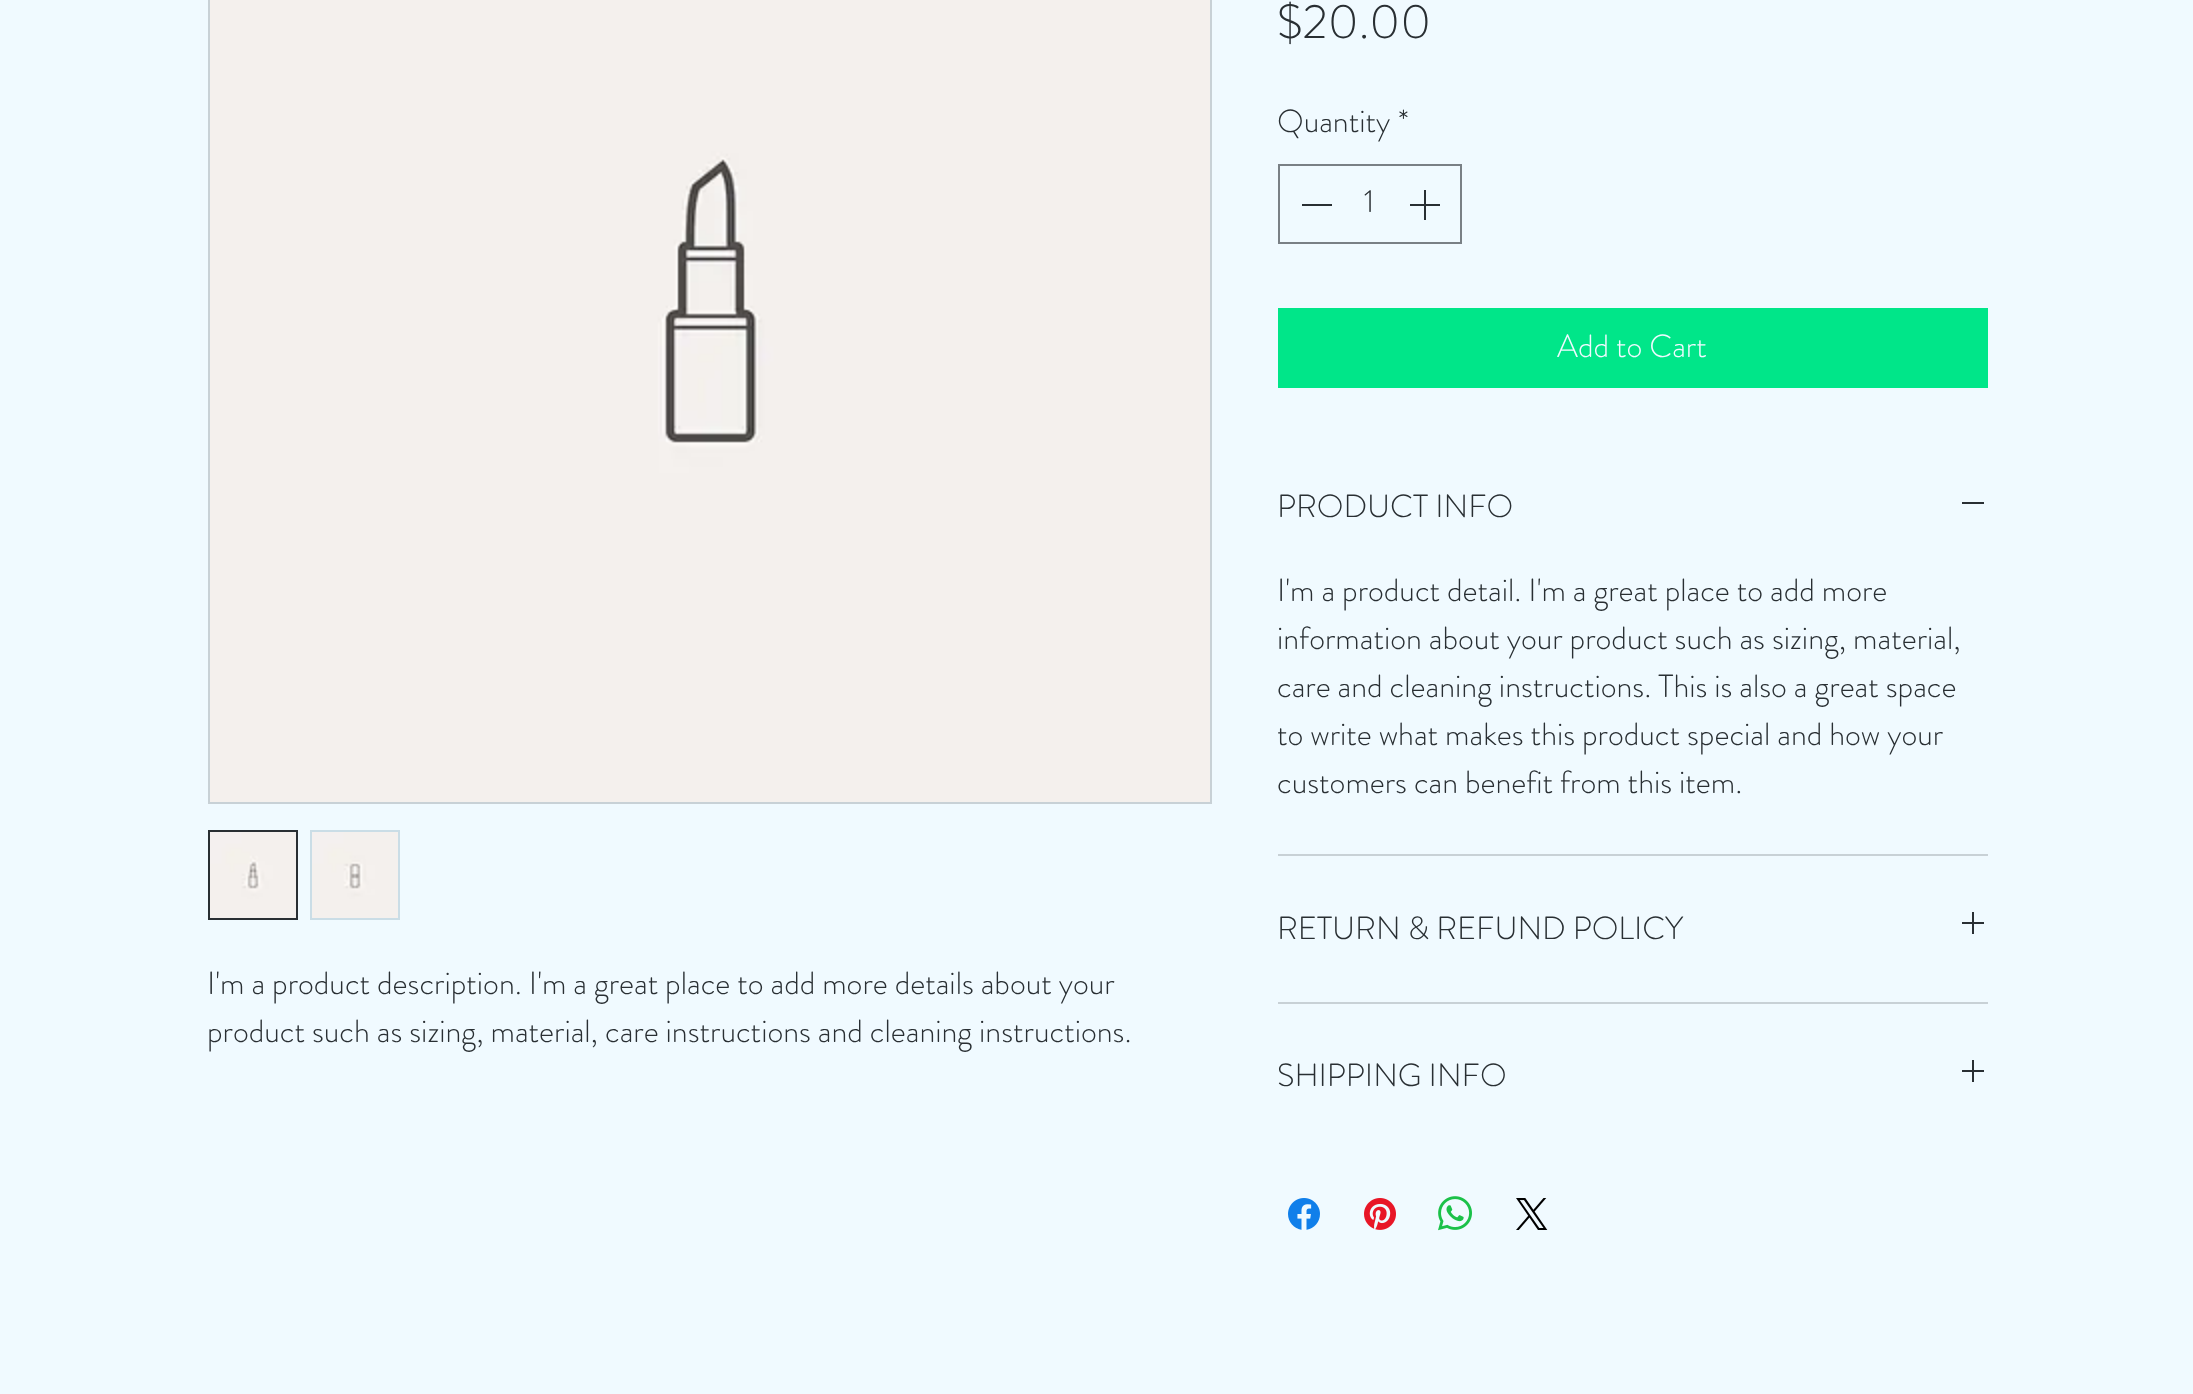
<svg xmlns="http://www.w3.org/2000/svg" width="2193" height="1394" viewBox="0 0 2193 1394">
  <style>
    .t1 { font: 300 32px 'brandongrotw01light'; fill: #292f33; }
    .t2 { font: 300 48px 'brandongrotw01light'; fill: #292f33; }
    .t3 { font: 300 32px 'brandongrotw01light'; fill: #f0faff; }
  </style>
  <rect width="100%" height="100%" fill="#f0faff"/>
  <rect x="209" y="-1" width="1002" height="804" fill="none" stroke="#c8d1d6" stroke-width="2"/>
  <image x="210" y="0" width="1000" height="802" href="images/1.png"/>
  <rect x="209" y="831" width="88" height="88" fill="none" stroke="#292f33" stroke-width="2"/>
  <image x="210" y="832" width="86" height="86" href="images/2.png"/>
  <rect x="311" y="831" width="88" height="88" fill="none" stroke="#cadde6" stroke-width="2"/>
  <image x="312" y="832" width="86" height="86" href="images/3.png"/>
  <text x="207" y="994" class="t1">I'm a product description. I'm a great place to add more details about your</text>
  <text x="207" y="1042" class="t1">product such as sizing, material, care instructions and cleaning instructions.</text>
  <text x="1277" y="38" class="t2">$20.00</text>
  <text x="1277" y="132" class="t1">Quantity</text>
  <text x="1398" y="132" class="t1">*</text>
  <rect x="1279" y="165" width="182" height="78" fill="none" stroke="#798085" stroke-width="2"/>
  <rect x="1302" y="204" width="30" height="2" fill="#292f33"/>
  <text x="1364" y="212" class="t1">1</text>
  <image x="1410" y="190" width="30" height="30" href="images/4.png"/>
  <rect x="1278" y="308" width="710" height="80" fill="#00e689"/>
  <text x="1557" y="357" class="t3">Add to Cart</text>
  <rect x="1278" y="854" width="710" height="2" fill="#c8d1d6"/>
  <text x="1277" y="517" class="t1">PRODUCT INFO</text>
  <rect x="1962" y="502" width="22" height="2" fill="#292f33"/>
  <text x="1277" y="601" class="t1">I'm a product detail. I'm a great place to add more</text>
  <text x="1277" y="649" class="t1">information about your product such as sizing, material,</text>
  <text x="1277" y="697" class="t1">care and cleaning instructions. This is also a great space</text>
  <text x="1277" y="745" class="t1">to write what makes this product special and how your</text>
  <text x="1277" y="793" class="t1">customers can benefit from this item.</text>
  <rect x="1278" y="1002" width="710" height="2" fill="#c8d1d6"/>
  <text x="1277" y="939" class="t1">RETURN &amp; REFUND POLICY</text>
  <image x="1962" y="912" width="22" height="22" href="images/5.png"/>
  <text x="1277" y="1086" class="t1">SHIPPING INFO</text>
  <image x="1962" y="1060" width="22" height="22" href="images/5.png"/>
  <image x="1288" y="1198" width="32" height="32" href="images/6.png"/>
  <image x="1364" y="1198" width="32" height="32" href="images/7.png"/>
  <image x="1438" y="1196" width="34" height="35" href="images/8.png"/>
  <image x="1516" y="1198" width="32" height="32" href="images/9.png"/>
</svg>
